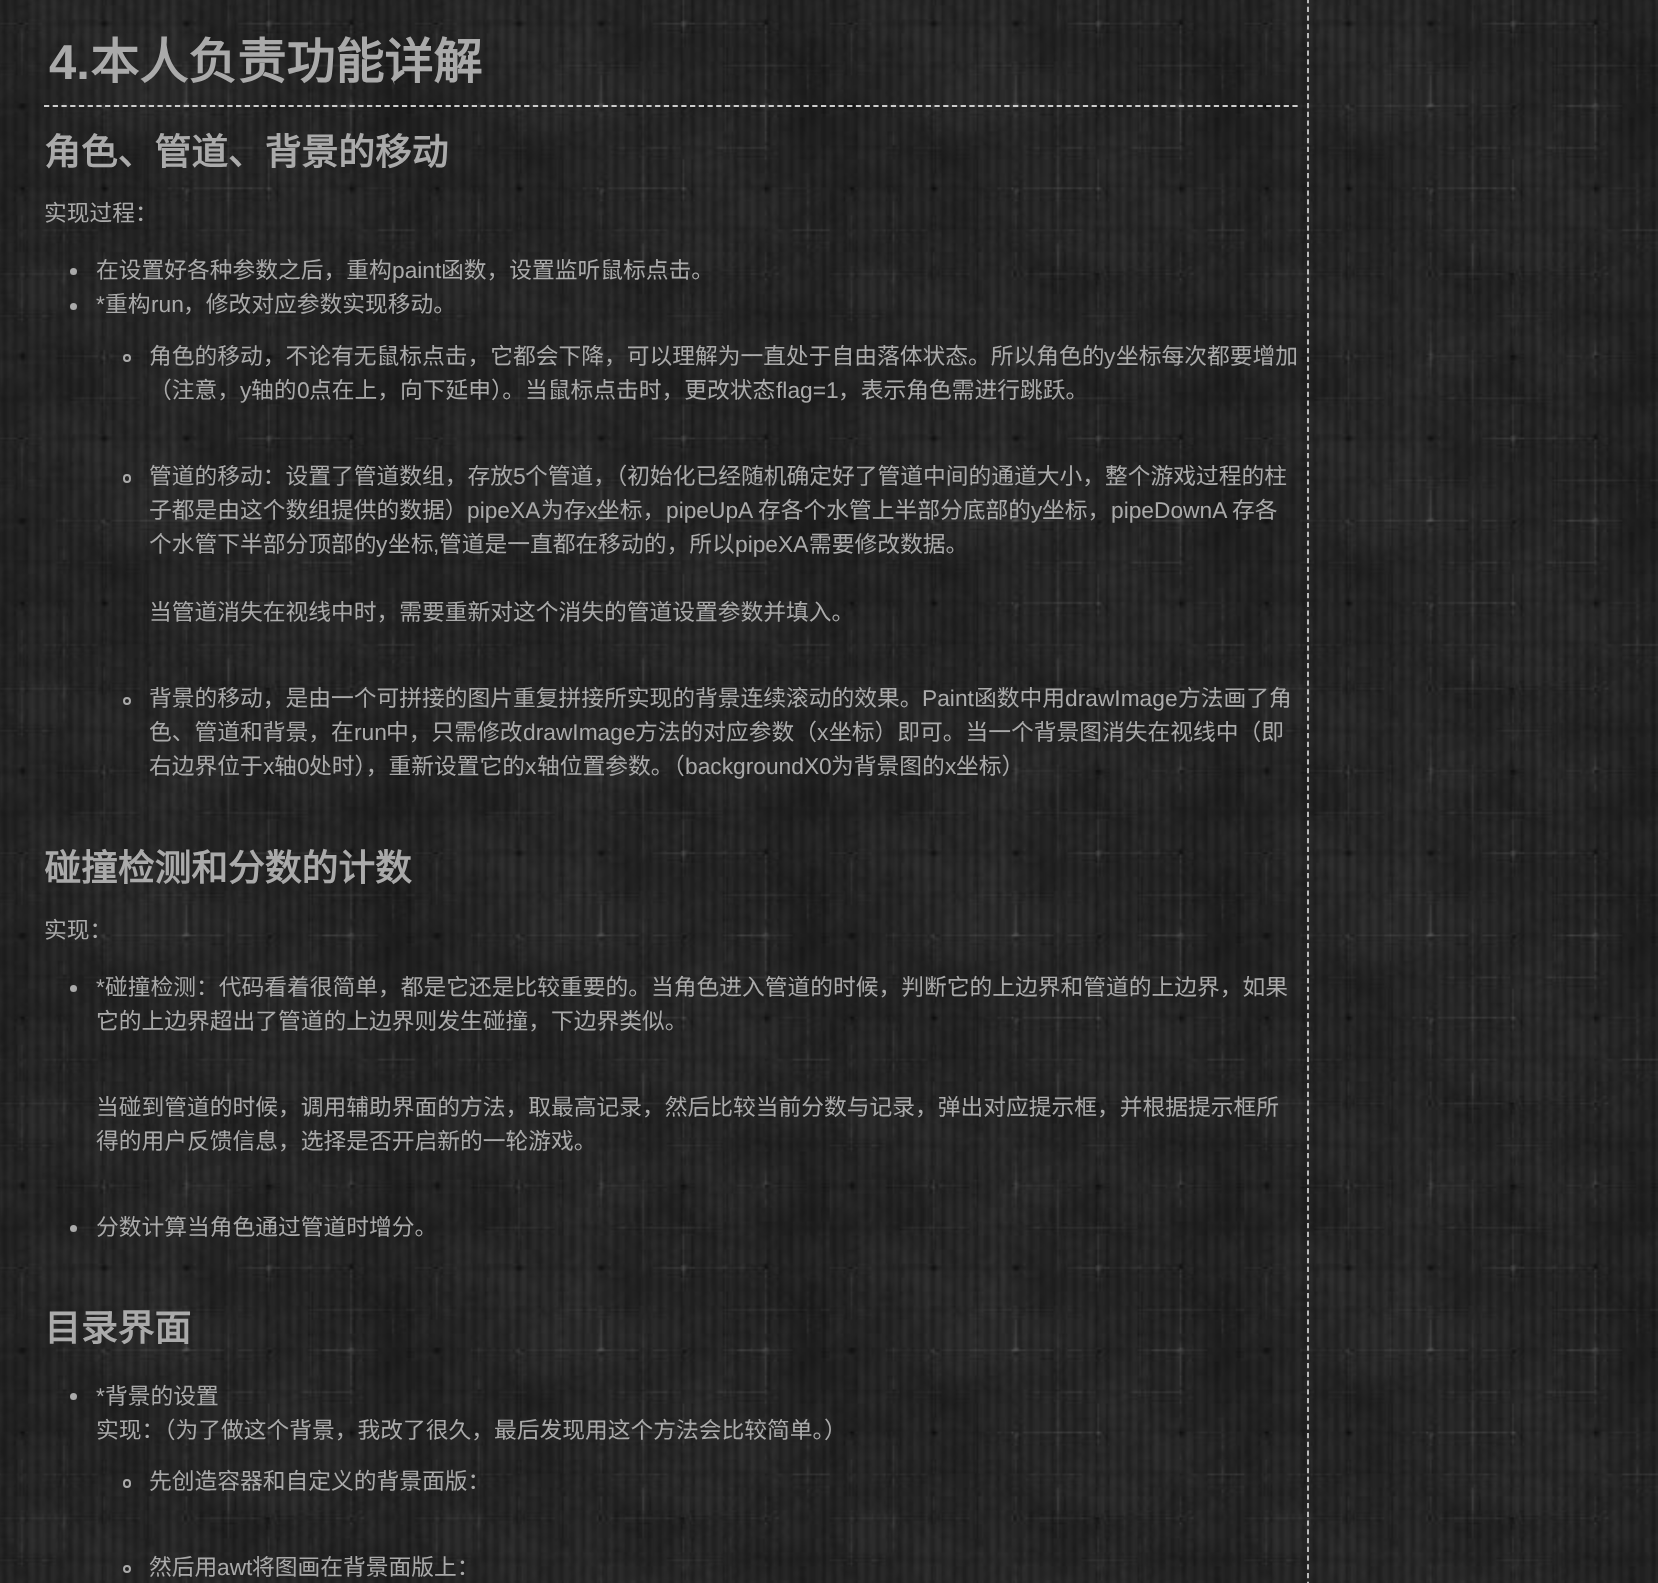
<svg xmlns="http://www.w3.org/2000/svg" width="1658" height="1583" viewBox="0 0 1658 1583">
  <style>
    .t1 { font: bold 49px Liberation Sans; fill: #aaa; }
    .t2 { font: bold 49px Noto Sans CJK SC; fill: #aaa; }
    .t3 { font: bold 36.75px Noto Sans CJK SC; fill: #aaa; }
    .t4 { font: 22.75px Noto Sans CJK SC; fill: #aaa; }
    .t5 { font: 22.75px Liberation Sans; fill: #aaa; }
  </style>
  <rect width="100%" height="100%" fill="#fff"/>
  <image x="0" y="0" width="1658" height="1583" href="images/1.png"/>
  <path d="M44 106H1298.5" fill="none" stroke="#ccc" stroke-width="1.8" stroke-dasharray="5.25 3.48"/>
  <text x="49" y="79" class="t1">4.</text>
  <text x="90" y="79" class="t2">本人负责功能详解</text>
  <text x="44" y="165" class="t3">角色、管道、背景的移动</text>
  <text x="44" y="221" class="t4">实现过程：</text>
  <circle cx="73.5" cy="271.5" r="3.5" fill="#aaa"/>
  <text x="96" y="278" class="t4">在设置好各种参数之后，重构</text>
  <text x="392" y="278" class="t5">paint</text>
  <text x="441" y="278" class="t4">函数，设置监听鼠标点击。</text>
  <circle cx="73.5" cy="306.5" r="3.5" fill="#aaa"/>
  <text x="96" y="312" class="t5">*</text>
  <text x="105" y="312" class="t4">重构</text>
  <text x="151" y="312" class="t5">run</text>
  <text x="183" y="312" class="t4">，修改对应参数实现移动。</text>
  <circle cx="127" cy="358" r="3" fill="none" stroke="#aaa" stroke-width="2"/>
  <text x="149" y="364" class="t4">角色的移动，不论有无鼠标点击，它都会下降，可以理解为一直处于自由落体状态。所以角色的</text>
  <text x="1104" y="364" class="t5">y</text>
  <text x="1116" y="364" class="t4">坐标每次都要增加</text>
  <text x="149" y="398" class="t4">（注意，</text>
  <text x="240" y="398" class="t5">y</text>
  <text x="251" y="398" class="t4">轴的</text>
  <text x="297" y="398" class="t5">0</text>
  <text x="309" y="398" class="t4">点在上，向下延申）。当鼠标点击时，更改状态</text>
  <text x="776" y="398" class="t5">flag=1</text>
  <text x="838" y="398" class="t4">，表示角色需进行跳跃。</text>
  <rect x="124" y="475" width="6" height="7" rx="3" fill="none" stroke="#aaa" stroke-width="2"/>
  <text x="149" y="484" class="t4">管道的移动：设置了管道数组，存放</text>
  <text x="513" y="484" class="t5">5</text>
  <text x="525" y="484" class="t4">个管道，（初始化已经随机确定好了管道中间的通道大小，整个游戏过程的柱</text>
  <text x="149" y="518" class="t4">子都是由这个数组提供的数据）</text>
  <text x="467" y="518" class="t5">pipeXA</text>
  <text x="541" y="518" class="t4">为存</text>
  <text x="586" y="518" class="t5">x</text>
  <text x="597" y="518" class="t4">坐标，</text>
  <text x="666" y="518" class="t5">pipeUpA</text>
  <text x="758" y="518" class="t4">存各个水管上半部分底部的</text>
  <text x="1031" y="518" class="t5">y</text>
  <text x="1042" y="518" class="t4">坐标，</text>
  <text x="1111" y="518" class="t5">pipeDownA</text>
  <text x="1232" y="518" class="t4">存各</text>
  <text x="149" y="552" class="t4">个水管下半部分顶部的</text>
  <text x="376" y="552" class="t5">y</text>
  <text x="388" y="552" class="t4">坐标</text>
  <text x="433" y="552" class="t5">,</text>
  <text x="439" y="552" class="t4">管道是一直都在移动的，所以</text>
  <text x="735" y="552" class="t5">pipeXA</text>
  <text x="809" y="552" class="t4">需要修改数据。</text>
  <text x="149" y="620" class="t4">当管道消失在视线中时，需要重新对这个消失的管道设置参数并填入。</text>
  <circle cx="127" cy="701" r="3" fill="none" stroke="#aaa" stroke-width="2"/>
  <text x="149" y="706" class="t4">背景的移动，是由一个可拼接的图片重复拼接所实现的背景连续滚动的效果。</text>
  <text x="922" y="706" class="t5">Paint</text>
  <text x="974" y="706" class="t4">函数中用</text>
  <text x="1065" y="706" class="t5">drawImage</text>
  <text x="1178" y="706" class="t4">方法画了角</text>
  <text x="149" y="740" class="t4">色、管道和背景，在</text>
  <text x="354" y="740" class="t5">run</text>
  <text x="386" y="740" class="t4">中，只需修改</text>
  <text x="523" y="740" class="t5">drawImage</text>
  <text x="635" y="740" class="t4">方法的对应参数（</text>
  <text x="817" y="740" class="t5">x</text>
  <text x="829" y="740" class="t4">坐标）即可。当一个背景图消失在视线中（即</text>
  <text x="149" y="774" class="t4">右边界位于</text>
  <text x="263" y="774" class="t5">x</text>
  <text x="274" y="774" class="t4">轴</text>
  <text x="297" y="774" class="t5">0</text>
  <text x="309" y="774" class="t4">处时），重新设置它的</text>
  <text x="525" y="774" class="t5">x</text>
  <text x="537" y="774" class="t4">轴位置参数。（</text>
  <text x="685" y="774" class="t5">backgroundX0</text>
  <text x="831" y="774" class="t4">为背景图的</text>
  <text x="945" y="774" class="t5">x</text>
  <text x="956" y="774" class="t4">坐标）</text>
  <text x="44" y="881" class="t3">碰撞检测和分数的计数</text>
  <text x="44" y="938" class="t4">实现：</text>
  <circle cx="73.5" cy="988.5" r="3.5" fill="#aaa"/>
  <text x="96" y="995" class="t5">*</text>
  <text x="105" y="995" class="t4">碰撞检测：代码看着很简单，都是它还是比较重要的。当角色进入管道的时候，判断它的上边界和管道的上边界，如果</text>
  <text x="96" y="1029" class="t4">它的上边界超出了管道的上边界则发生碰撞，下边界类似。</text>
  <text x="96" y="1115" class="t4">当碰到管道的时候，调用辅助界面的方法，取最高记录，然后比较当前分数与记录，弹出对应提示框，并根据提示框所</text>
  <text x="96" y="1149" class="t4">得的用户反馈信息，选择是否开启新的一轮游戏。</text>
  <circle cx="73.5" cy="1228.5" r="3.5" fill="#aaa"/>
  <text x="96" y="1235" class="t4">分数计算当角色通过管道时增分。</text>
  <text x="44" y="1341" class="t3">目录界面</text>
  <circle cx="73.5" cy="1396.5" r="3.5" fill="#aaa"/>
  <text x="96" y="1404" class="t5">*</text>
  <text x="105" y="1404" class="t4">背景的设置</text>
  <text x="96" y="1438" class="t4">实现：（为了做这个背景，我改了很久，最后发现用这个方法会比较简单。）</text>
  <rect x="124" y="1480" width="6" height="7" rx="3" fill="none" stroke="#aaa" stroke-width="2"/>
  <text x="149" y="1489" class="t4">先创造容器和自定义的背景面版：</text>
  <circle cx="127" cy="1569" r="3" fill="none" stroke="#aaa" stroke-width="2"/>
  <text x="149" y="1575" class="t4">然后用</text>
  <text x="217" y="1575" class="t5">awt</text>
  <text x="252" y="1575" class="t4">将图画在背景面版上：</text>
  <path d="M1308-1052V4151" fill="none" stroke="#ccc" stroke-width="1.8" stroke-dasharray="5.25 3.5"/>
</svg>
